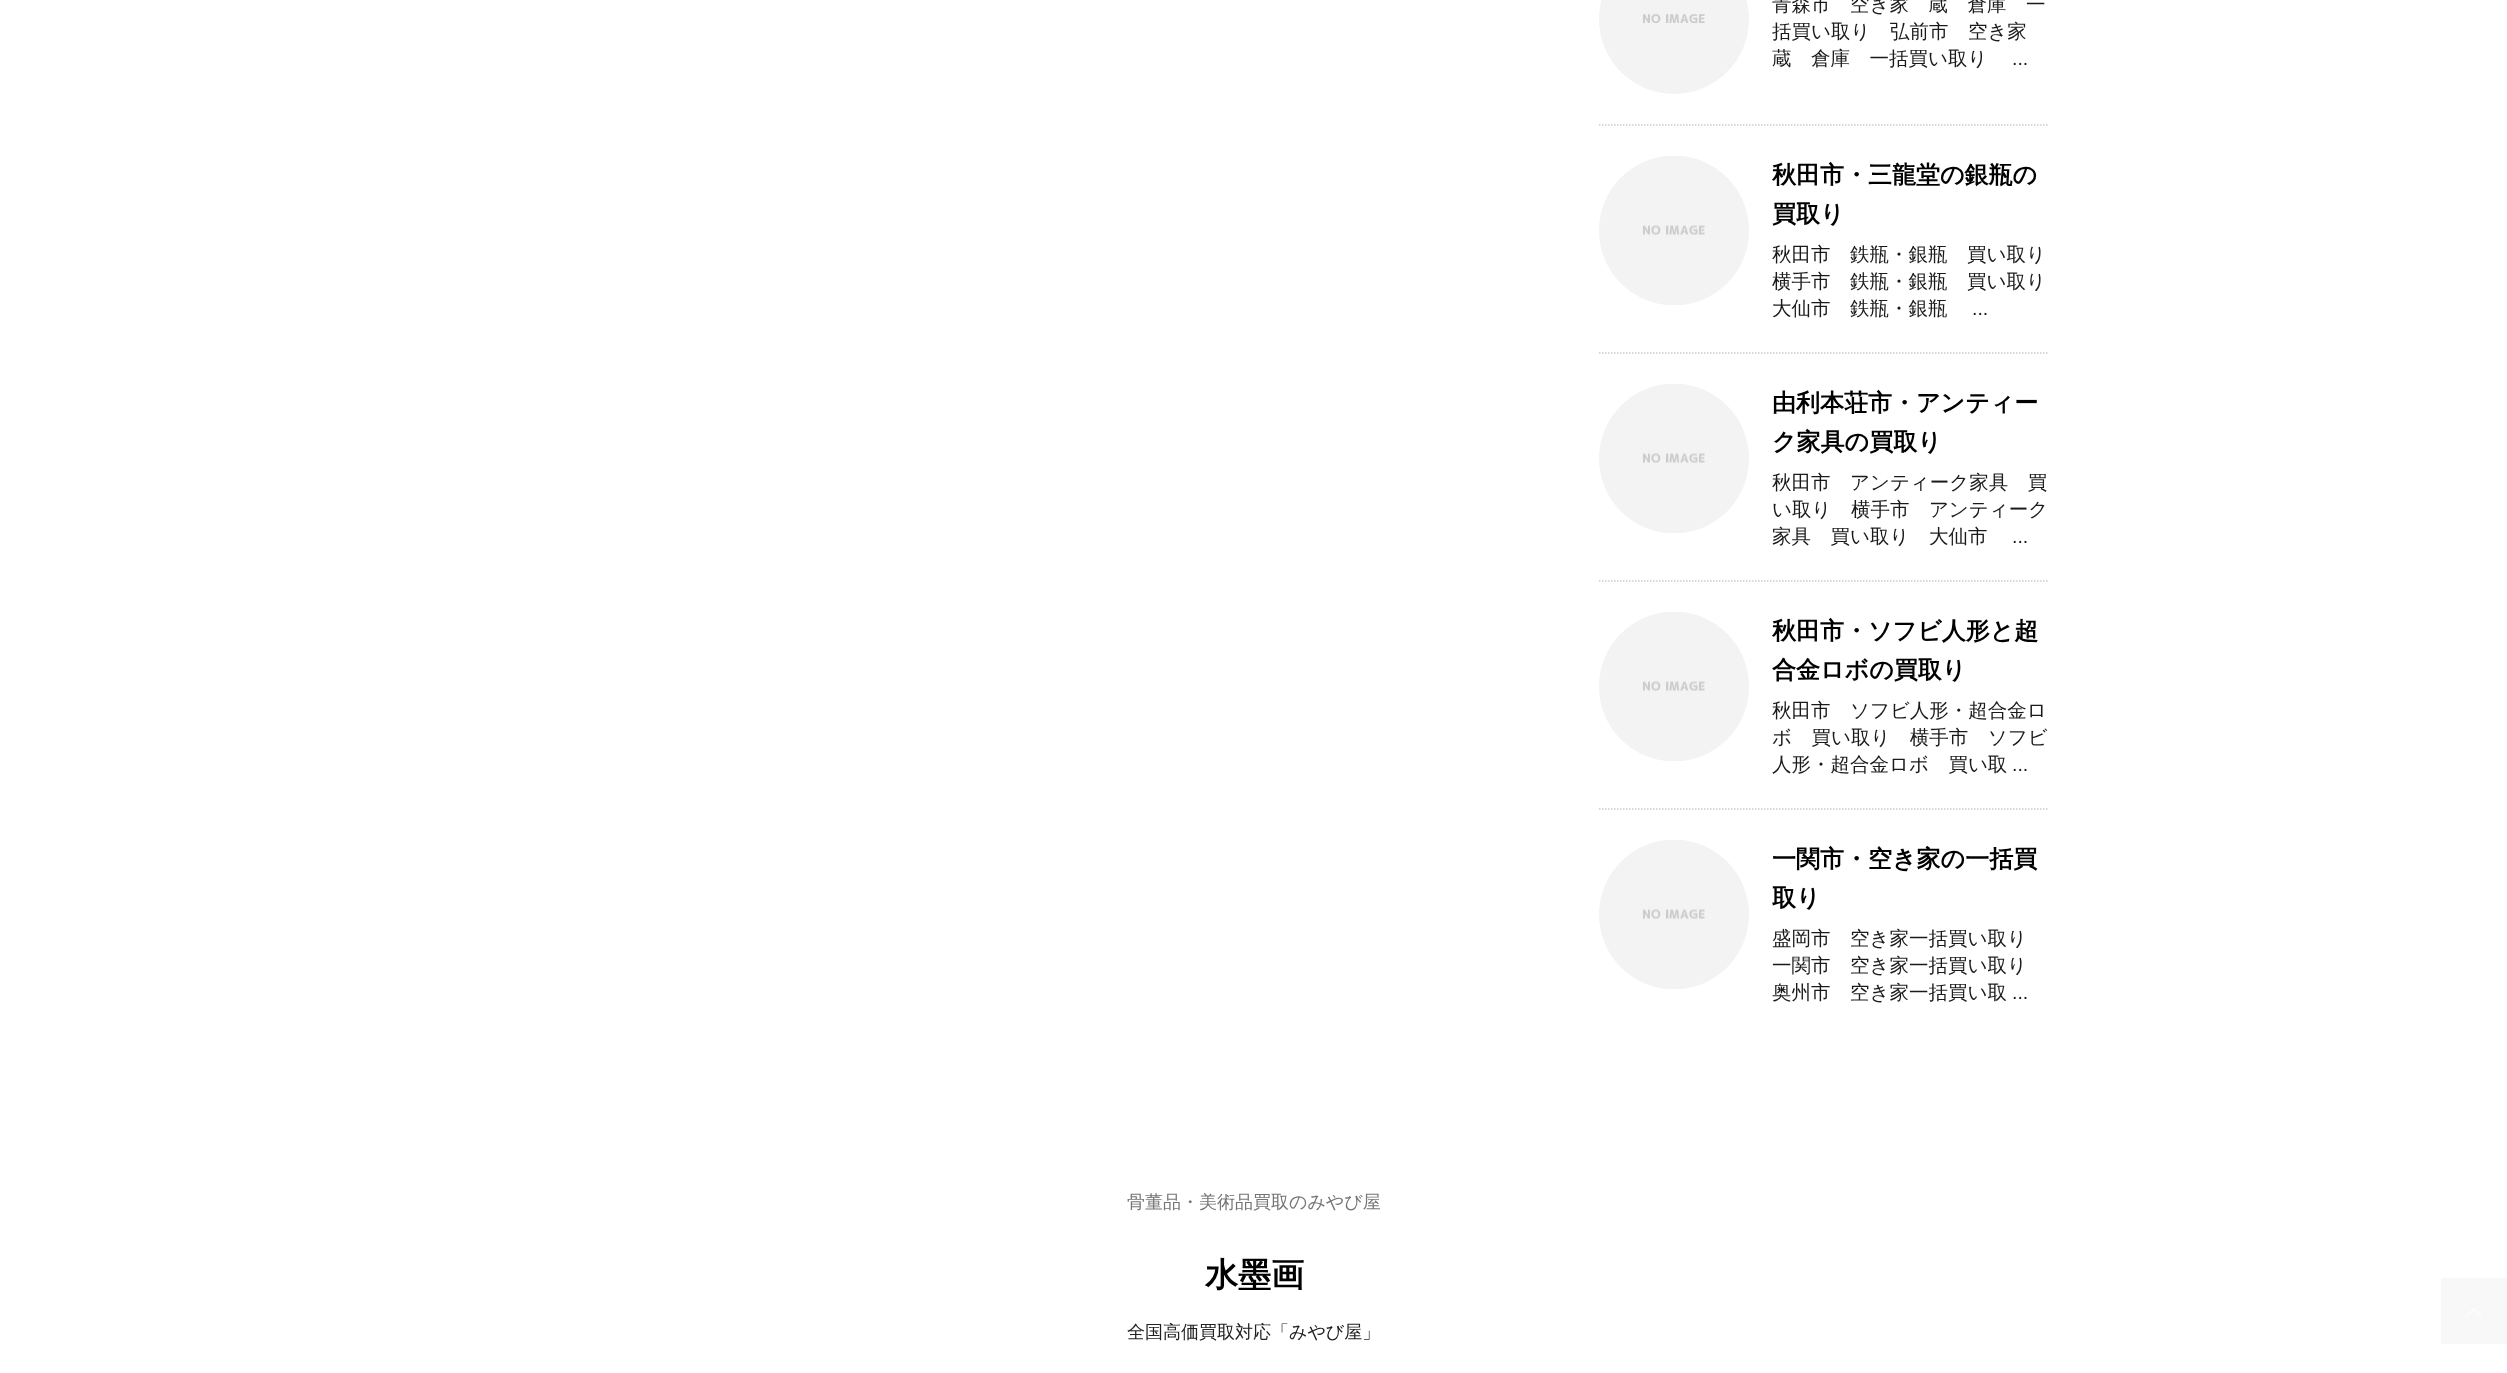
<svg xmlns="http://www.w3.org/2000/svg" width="2507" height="1373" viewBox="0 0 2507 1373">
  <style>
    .t1 { font: 500 19.5px WenQuanYi Zen Hei; fill: #1a1a1a; }
    .t2 { font: 19.5px Liberation Sans; fill: #1a1a1a; }
    .t3 { font: bold 24px WenQuanYi Zen Hei; fill: #000; }
    .t4 { font: 500 18px WenQuanYi Zen Hei; fill: #757575; }
    .t5 { font: bold 33px WenQuanYi Zen Hei; fill: #000; }
    .t6 { font: 500 18px WenQuanYi Zen Hei; fill: #212121; }
  </style>
  <rect width="100%" height="100%" fill="#fff"/>
  <path d="M1599 125H2049" fill="none" stroke="#ccc" stroke-width="1.5" stroke-dasharray="1.5 1.5"/>
  <image x="1599" y="0" width="150" height="94" href="images/1.png"/>
  <text x="1772" y="11" class="t1">青森市　空き家　蔵　倉庫　一</text>
  <text x="1772" y="38" class="t1">括買い取り　弘前市　空き家</text>
  <text x="1772" y="65" class="t1">蔵　倉庫　一括買い取り</text>
  <text x="2012" y="65" class="t2">...</text>
  <path d="M1599 353H2049" fill="none" stroke="#ccc" stroke-width="1.5" stroke-dasharray="1.5 1.5"/>
  <image x="1599" y="156" width="150" height="149" href="images/2.png"/>
  <text x="1772" y="183" class="t3">秋田市・三龍堂の銀瓶の</text>
  <text x="1772" y="222" class="t3">買取り</text>
  <text x="1772" y="261" class="t1">秋田市　鉄瓶・銀瓶　買い取り</text>
  <text x="1772" y="288" class="t1">横手市　鉄瓶・銀瓶　買い取り</text>
  <text x="1772" y="315" class="t1">大仙市　鉄瓶・銀瓶</text>
  <text x="1972" y="315" class="t2">...</text>
  <path d="M1599 581H2049" fill="none" stroke="#ccc" stroke-width="1.5" stroke-dasharray="1.5 1.5"/>
  <image x="1599" y="384" width="150" height="149" href="images/2.png"/>
  <text x="1772" y="411" class="t3">由利本荘市・アンティー</text>
  <text x="1772" y="450" class="t3">ク家具の買取り</text>
  <text x="1772" y="489" class="t1">秋田市　アンティーク家具　買</text>
  <text x="1772" y="516" class="t1">い取り　横手市　アンティーク</text>
  <text x="1772" y="543" class="t1">家具　買い取り　大仙市</text>
  <text x="2012" y="543" class="t2">...</text>
  <path d="M1599 809H2049" fill="none" stroke="#ccc" stroke-width="1.5" stroke-dasharray="1.5 1.5"/>
  <image x="1599" y="612" width="150" height="149" href="images/2.png"/>
  <text x="1772" y="639" class="t3">秋田市・ソフビ人形と超</text>
  <text x="1772" y="678" class="t3">合金ロボの買取り</text>
  <text x="1772" y="717" class="t1">秋田市　ソフビ人形・超合金ロ</text>
  <text x="1772" y="744" class="t1">ボ　買い取り　横手市　ソフビ</text>
  <text x="1772" y="771" class="t1">人形・超合金ロボ　買い取</text>
  <text x="2012" y="771" class="t2">...</text>
  <image x="1599" y="840" width="150" height="149" href="images/3.png"/>
  <text x="1772" y="867" class="t3">一関市・空き家の一括買</text>
  <text x="1772" y="906" class="t3">取り</text>
  <text x="1772" y="945" class="t1">盛岡市　空き家一括買い取り</text>
  <text x="1772" y="972" class="t1">一関市　空き家一括買い取り</text>
  <text x="1772" y="999" class="t1">奥州市　空き家一括買い取</text>
  <text x="2012" y="999" class="t2">...</text>
  <text x="1127" y="1208" class="t4">骨董品・美術品買取のみやび屋</text>
  <text x="1205" y="1286" class="t5">水墨画</text>
  <text x="1127" y="1338" class="t6">全国高価買取対応「みやび屋」</text>
  <rect x="2441" y="1278" width="66" height="66" fill="#f8f8f8"/>
  <image x="2466" y="1308" width="16" height="8" href="images/4.png"/>
</svg>
